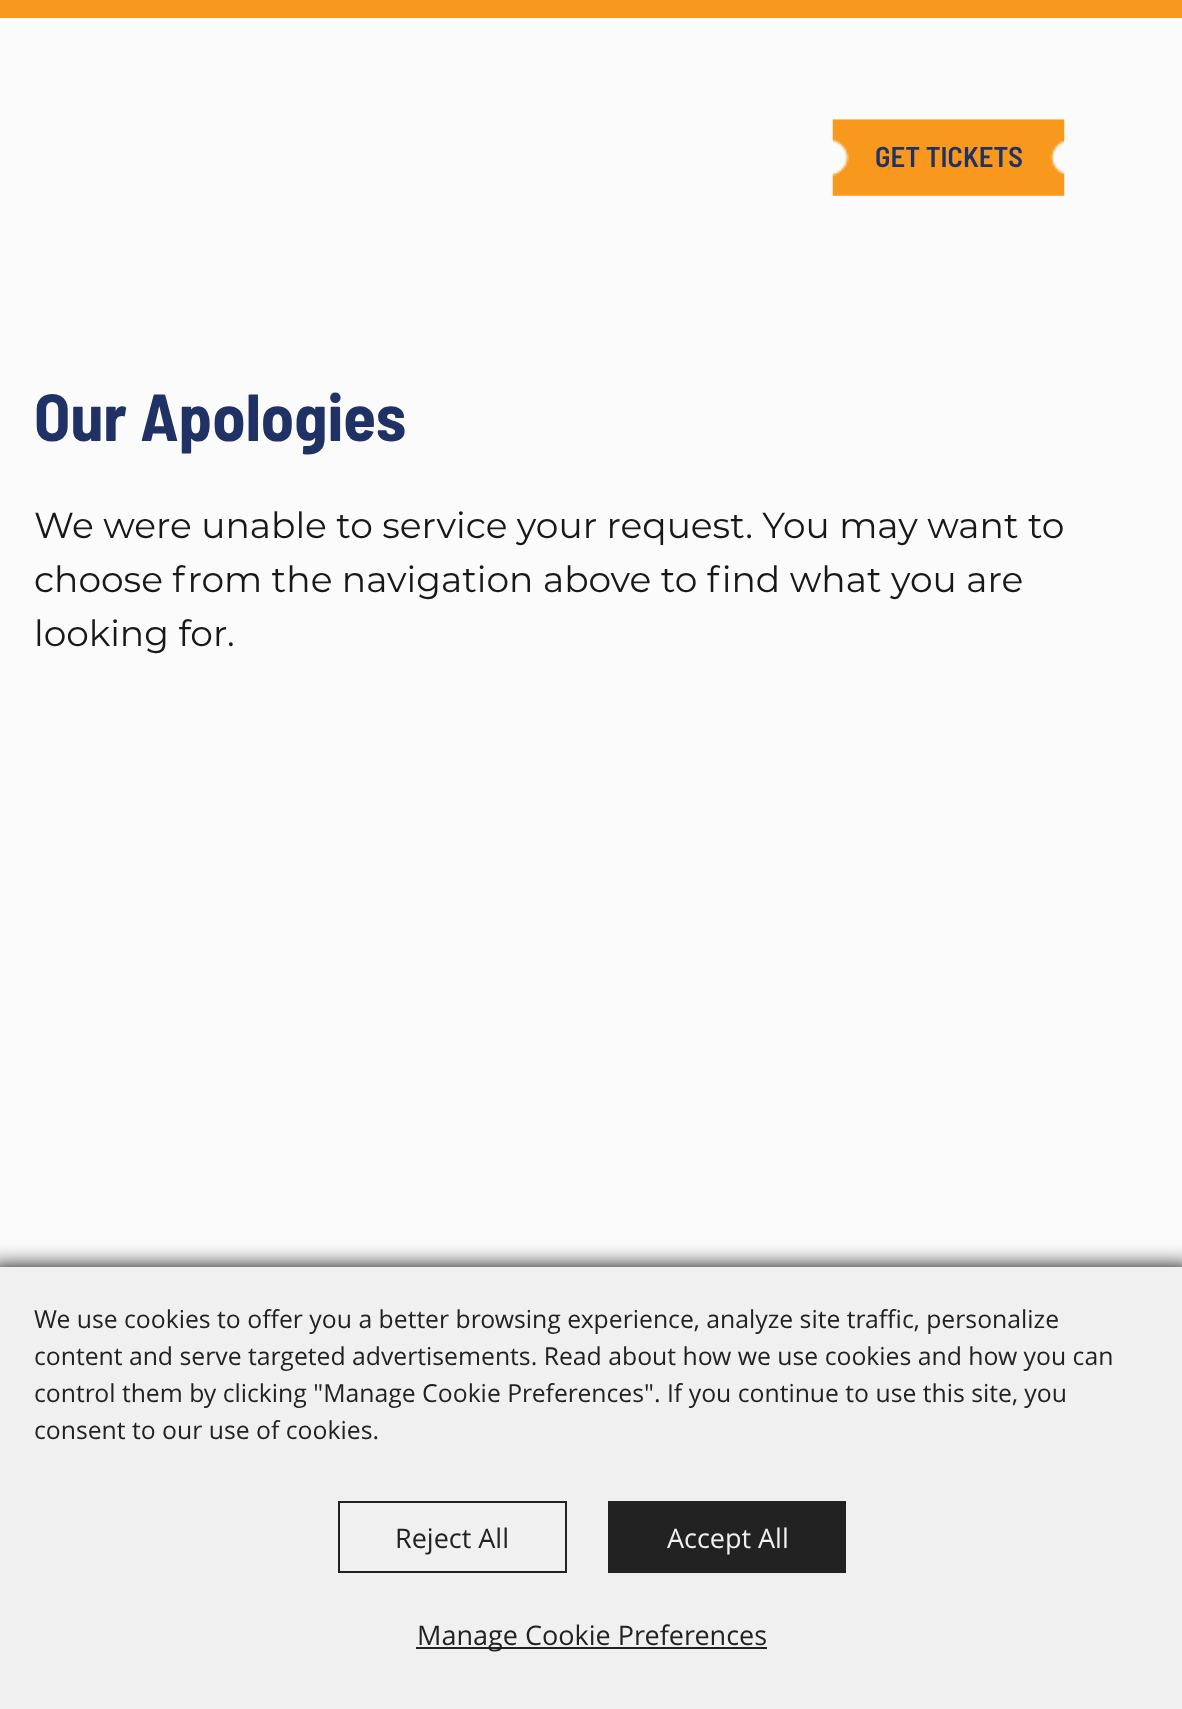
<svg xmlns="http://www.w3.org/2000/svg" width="1182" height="1709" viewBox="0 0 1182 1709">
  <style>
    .t1 { font: 600 28.75px Barlow Semi Condensed; fill: #203165; }
    .t2 { font: bold 66.5px Barlow Semi Condensed; fill: #203165; }
    .t3 { font: 36px Montserrat; fill: #181818; }
    .t4 { font: 24.75px Open Sans; fill: #222; }
    .t5 { font: 27px Open Sans; fill: #222; }
    .t6 { font: 27px Open Sans; fill: #f0f0f0; }
  </style>
  <rect width="100%" height="100%" fill="#fbfbfb"/>
  <rect x="0" y="0" width="1182" height="18" fill="#f8981d"/>
  <image x="832" y="119" width="233" height="77" href="images/1.png"/>
  <text x="875" y="167" class="t1">GET TICKETS</text>
  <text x="34" y="441" class="t2">Our Apologies</text>
  <text x="34" y="538" class="t3">We were unable to service your request. You may want to</text>
  <text x="34" y="592" class="t3">choose from the navigation above to find what you are</text>
  <text x="34" y="646" class="t3">looking for.</text>
  <rect x="-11" y="1267" width="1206" height="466" fill="#000" filter="blur(11px)"/>
  <rect x="0" y="1267" width="1182" height="442" fill="#f0f0f0"/>
  <text x="34" y="1328" class="t4">We use cookies to offer you a better browsing experience, analyze site traffic, personalize</text>
  <text x="34" y="1365" class="t4">content and serve targeted advertisements. Read about how we use cookies and how you can</text>
  <text x="34" y="1402" class="t4">control them by clicking "Manage Cookie Preferences". If you continue to use this site, you</text>
  <text x="34" y="1439" class="t4">consent to our use of cookies.</text>
  <rect x="339" y="1502" width="227" height="70" fill="none" stroke="#222" stroke-width="2"/>
  <text x="395" y="1548" class="t5">Reject All</text>
  <rect x="608" y="1501" width="238" height="72" fill="#222"/>
  <text x="667" y="1548" class="t6">Accept All</text>
  <rect x="416" y="1647" width="351" height="2" fill="#222"/>
  <text x="417" y="1645" class="t5">Manage Cookie Preferences</text>
</svg>
